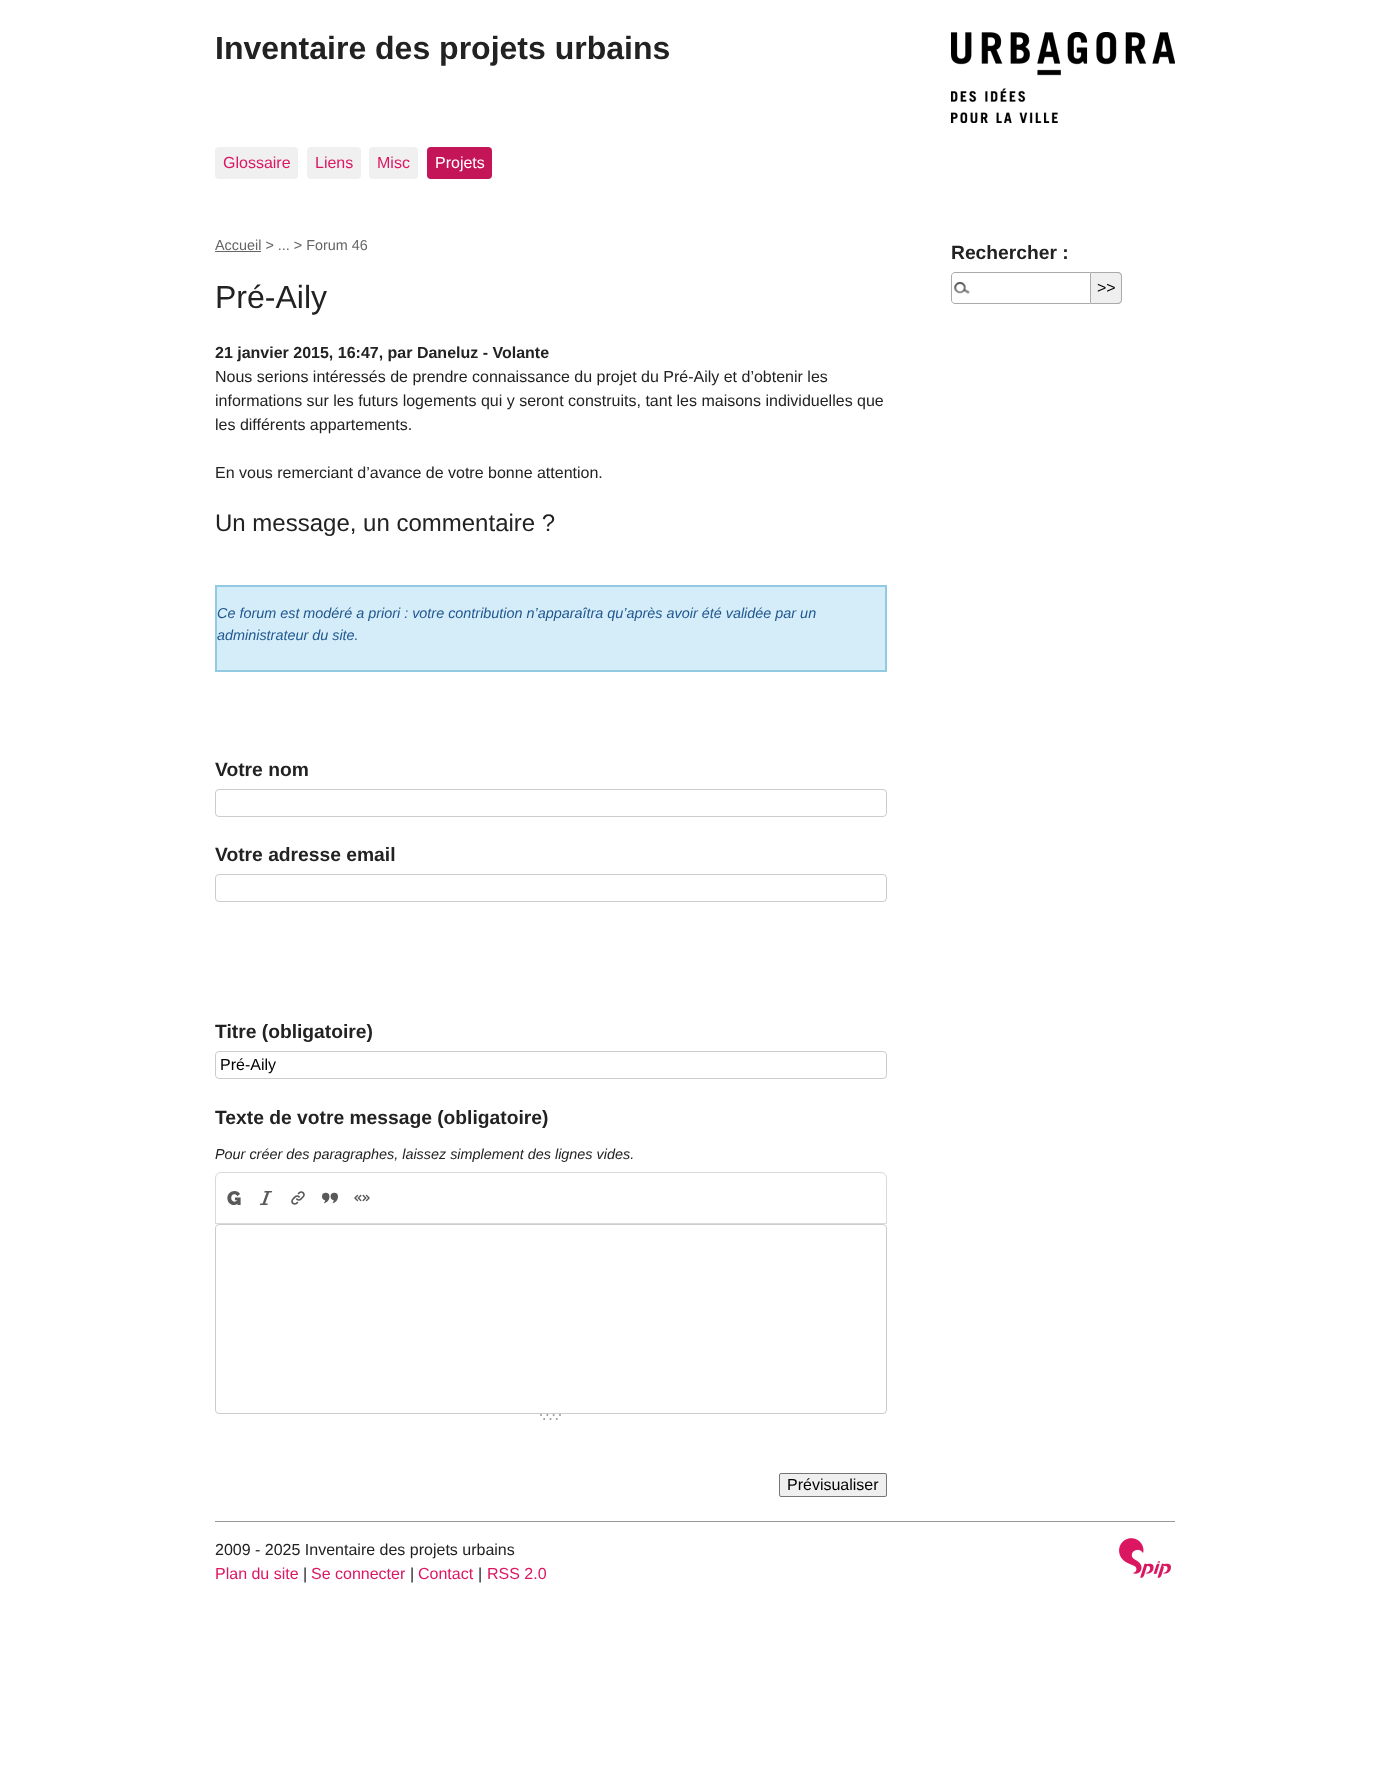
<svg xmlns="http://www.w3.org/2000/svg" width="1389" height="1768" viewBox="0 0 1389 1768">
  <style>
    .t1 { font: bold 32px Liberation Sans; fill: #222; }
    .t2 { font: 16px Liberation Sans; fill: #db1762; }
    .t3 { font: 16px Liberation Sans; fill: #fff; }
    .t4 { font: 14.4px Liberation Sans; fill: #666; }
    .t5 { font: 32px Liberation Sans; fill: #222; }
    .t6 { font: bold 16px Liberation Sans; fill: #222; }
    .t7 { font: 16px Liberation Sans; fill: #222; }
    .t8 { font: 24px Liberation Sans; fill: #222; }
    .t9 { font: italic 14.4px Liberation Sans; fill: #205791; }
    .t10 { font: bold 19.25px Liberation Sans; fill: #222; }
    .t11 { font: 16px Liberation Sans; fill: #000; }
    .t12 { font: italic 14.4px Liberation Sans; fill: #222; }
  </style>
  <rect width="100%" height="100%" fill="#fff"/>
  <text x="215" y="59" class="t1">Inventaire des projets urbains</text>
  <image x="951" y="32" width="224" height="91" href="images/1.png"/>
  <rect x="215" y="147" width="83" height="32" rx="4" fill="#f0f0f0"/>
  <text x="223" y="168" class="t2">Glossaire</text>
  <rect x="307" y="147" width="54" height="32" rx="4" fill="#f0f0f0"/>
  <text x="315" y="168" class="t2">Liens</text>
  <rect x="369" y="147" width="49" height="32" rx="4" fill="#f0f0f0"/>
  <text x="377" y="168" class="t2">Misc</text>
  <rect x="427" y="147" width="65" height="32" rx="4" fill="#c41558"/>
  <text x="435" y="168" class="t3">Projets</text>
  <text x="215" y="250" class="t4">Accueil &gt; ... &gt; Forum 46</text>
  <rect x="215" y="251" width="46" height="1" fill="#666"/>
  <text x="215" y="308" class="t5">Pré-Aily</text>
  <text x="215" y="358" class="t6">21 janvier 2015, 16:47, par Daneluz - Volante</text>
  <text x="215" y="382" class="t7">Nous serions intéressés de prendre connaissance du projet du Pré-Aily et d’obtenir les</text>
  <text x="215" y="406" class="t7">informations sur les futurs logements qui y seront construits, tant les maisons individuelles que</text>
  <text x="215" y="430" class="t7">les différents appartements.</text>
  <text x="215" y="478" class="t7">En vous remerciant d’avance de votre bonne attention.</text>
  <text x="215" y="531" class="t8">Un message, un commentaire ?</text>
  <rect x="216" y="586" width="670" height="85" fill="#d5edf8" stroke="#92cae4" stroke-width="2"/>
  <text x="217" y="618" class="t9">Ce forum est modéré a priori : votre contribution n’apparaîtra qu’après avoir été validée par un</text>
  <text x="217" y="640" class="t9">administrateur du site.</text>
  <text x="215" y="776" class="t10">Votre nom</text>
  <rect x="215.5" y="789.5" width="671" height="27" rx="3.5" fill="none" stroke="#ccc"/>
  <text x="215" y="861" class="t10">Votre adresse email</text>
  <rect x="215.5" y="874.5" width="671" height="27" rx="3.5" fill="none" stroke="#ccc"/>
  <text x="215" y="1038" class="t10">Titre (obligatoire)</text>
  <rect x="215.5" y="1051.5" width="671" height="27" rx="3.5" fill="none" stroke="#ccc"/>
  <text x="220" y="1070" class="t11">Pré-Aily</text>
  <text x="215" y="1124" class="t10">Texte de votre message (obligatoire)</text>
  <text x="215" y="1159" class="t12">Pour créer des paragraphes, laissez simplement des lignes vides.</text>
  <path d="M221 1172.5H881C884 1172.5 886.5 1175 886.5 1178V1223.5H215.5V1178C215.5 1175 218 1172.5 221 1172.5Z" fill="none" stroke="#d9d9d9"/>
  <image x="227" y="1191" width="14" height="14" href="images/2.png"/>
  <image x="259" y="1191" width="14" height="14" href="images/3.png"/>
  <image x="291" y="1191" width="14" height="14" href="images/4.png"/>
  <image x="322" y="1192" width="16" height="12" href="images/5.png"/>
  <image x="354" y="1194" width="16" height="8" href="images/6.png"/>
  <rect x="215.5" y="1224.5" width="671" height="189" rx="3.5" fill="none" stroke="#ccc"/>
  <image x="540" y="1414" width="21" height="6" href="images/7.png"/>
  <rect x="779.5" y="1473.5" width="107" height="23" rx="1.5" fill="#efefef" stroke="#767676"/>
  <text x="787" y="1490" class="t11">Prévisualiser</text>
  <text x="951" y="259" class="t10">Rechercher :</text>
  <image x="954" y="282" width="16" height="12" href="images/8.png"/>
  <path d="M955 272.5H1090.5V303.5H955C953 303.5 951.5 302 951.5 300V276C951.5 274 953 272.5 955 272.5Z" fill="none" stroke="#aaa"/>
  <path d="M1091 272H1118C1120 272 1122 274 1122 276V300C1122 302 1120 304 1118 304H1091Z" fill="#efefef"/>
  <path d="M1091 272H1118C1120 272 1122 274 1122 276V300C1122 302 1120 304 1118 304H1091ZM1091 273H1118C1119.5 273 1121 274.5 1121 276V300C1121 301.5 1119.5 303 1118 303H1091Z" fill="#aaa" fill-rule="evenodd"/>
  <text x="1097" y="293" class="t11">&gt;&gt;</text>
  <rect x="215" y="1521" width="960" height="1" fill="#999"/>
  <text x="215" y="1555" class="t7">2009 - 2025 Inventaire des projets urbains</text>
  <text x="215" y="1579" class="t2">Plan du site</text>
  <text x="303" y="1579" class="t7">|</text>
  <text x="311" y="1579" class="t2">Se connecter</text>
  <text x="410" y="1579" class="t7">|</text>
  <text x="418" y="1579" class="t2">Contact</text>
  <text x="478" y="1579" class="t7">|</text>
  <text x="487" y="1579" class="t2">RSS 2.0</text>
  <image x="1119" y="1538" width="52" height="40" href="images/9.png"/>
</svg>
